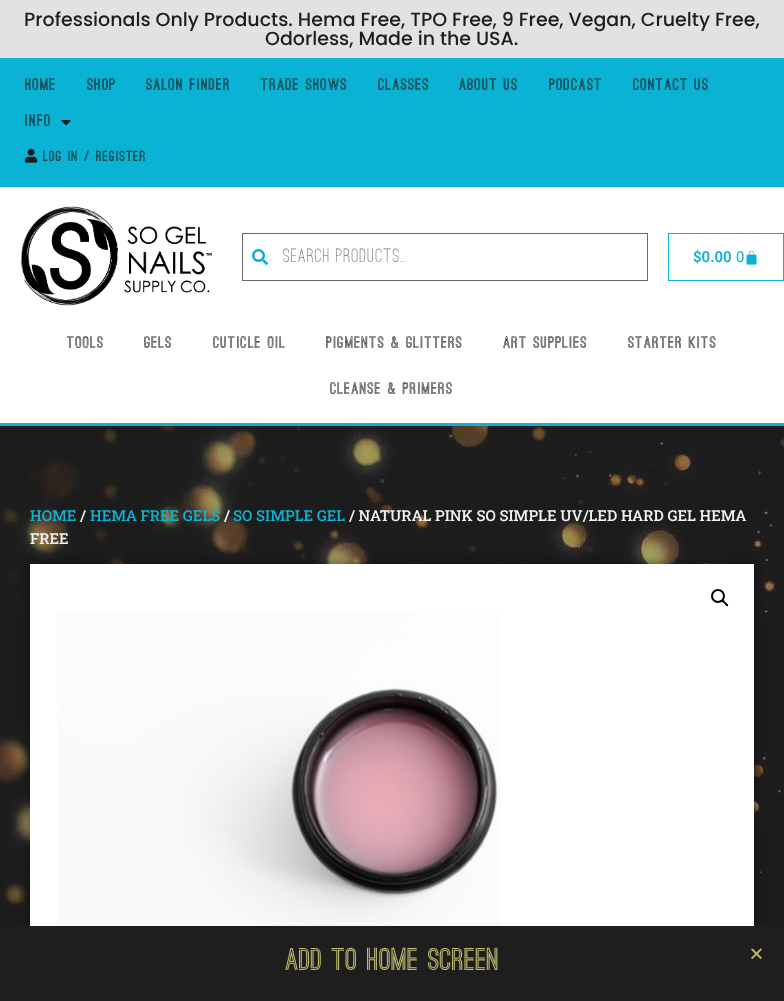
<svg xmlns="http://www.w3.org/2000/svg" width="784" height="1001" viewBox="0 0 784 1001">
  <style>
    .t1 { font: 500 19px Poppins; fill: #1e1e1e; }
    .t2 { font: bold 16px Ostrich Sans; letter-spacing: 1px; fill: #1e1e1e; }
    .t3 { font: bold 14px Ostrich Sans; letter-spacing: 1px; fill: #1e1e1e; }
    .t4 { font: 500 20px Ostrich Sans; letter-spacing: 1px; fill: #757575; }
    .t5 { font: 600 15px Roboto; fill: #0ab2d3; }
    .t6 { font: 15px Roboto; fill: #0ab2d3; }
    .t7 { font: 500 15px Roboto Slab; fill: #0ab2d3; }
    .t8 { font: 500 15px Roboto Slab; fill: #f3f3f3; }
    .t9 { font: bold 30px Ostrich Sans; fill: #c0bb70; }
  </style>
  <rect width="100%" height="100%" fill="#fff"/>
  <rect x="0" y="0" width="784" height="58" fill="#e4e1e1"/>
  <text x="24" y="26" class="t1">Professionals Only Products. Hema Free, TPO Free, 9 Free, Vegan, Cruelty Free,</text>
  <text x="265" y="45" class="t1">Odorless, Made in the USA.</text>
  <rect x="0" y="58" width="784" height="129" fill="#0ab2d3"/>
  <text x="25" y="90" class="t2">Home</text>
  <text x="87" y="90" class="t2">Shop</text>
  <text x="146" y="90" class="t2">Salon Finder</text>
  <text x="261" y="90" class="t2">Trade Shows</text>
  <text x="378" y="90" class="t2">Classes</text>
  <text x="459" y="90" class="t2">About Us</text>
  <text x="549" y="90" class="t2">Podcast</text>
  <text x="633" y="90" class="t2">Contact Us</text>
  <text x="25" y="126" class="t2">Info</text>
  <image x="61" y="120" width="10" height="6" href="images/1.png"/>
  <image x="25" y="148" width="13" height="15" href="images/2.png"/>
  <text x="43" y="161" class="t3">Log In / Register</text>
  <image x="20" y="206" width="192" height="100" href="images/3.png"/>
  <rect x="242.5" y="233.5" width="405" height="47" fill="none" stroke="#666"/>
  <image x="252" y="249" width="16" height="16" href="images/4.png"/>
  <text x="283" y="262" class="t4">Search products…</text>
  <rect x="668.5" y="233.5" width="115" height="47" fill="none" stroke="#0ab2d3"/>
  <text x="693" y="262" class="t5">$0.00</text>
  <text x="736" y="262" class="t6">0</text>
  <image x="746" y="250" width="11" height="15" href="images/5.png"/>
  <rect x="0" y="423" width="784" height="3" fill="#0ab2d3"/>
  <text x="67" y="348" class="t2">Tools</text>
  <text x="144" y="348" class="t2">Gels</text>
  <text x="213" y="348" class="t2">Cuticle Oil</text>
  <text x="326" y="348" class="t2">Pigments &amp; Glitters</text>
  <text x="503" y="348" class="t2">Art Supplies</text>
  <text x="628" y="348" class="t2">Starter Kits</text>
  <text x="330" y="394" class="t2">Cleanse &amp; Primers</text>
  <image x="0" y="426" width="784" height="500" href="images/6.png"/>
  <text x="30" y="521" class="t7">HOME</text>
  <text x="80" y="521" class="t8">/</text>
  <text x="90" y="521" class="t7">HEMA FREE GELS</text>
  <text x="224" y="521" class="t8">/</text>
  <text x="233" y="521" class="t7">SO SIMPLE GEL</text>
  <text x="349" y="521" class="t8">/ NATURAL PINK SO SIMPLE UV/LED HARD GEL HEMA</text>
  <text x="30" y="544" class="t8">FREE</text>
  <rect x="30" y="564" width="724" height="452" fill="#00000080" filter="blur(5px)"/>
  <rect x="30" y="564" width="724" height="362" fill="#fff"/>
  <circle cx="718" cy="596" r="6" fill="none" stroke="#000" stroke-width="2"/>
  <path d="M722 600C723.5 599 725 601.5 725.5 602.5C726.5 603 729 604.5 728 606C726.5 607 725 604.5 724.5 603.5C723.5 603 721 601.5 722 600Z" fill="#000"/>
  <image x="57" y="614" width="444" height="312" href="images/7.png"/>
  <rect x="0" y="926" width="784" height="75" fill="#1e1e1e"/>
  <text x="285" y="970" class="t9">Add To Home Screen</text>
  <image x="751" y="948" width="11" height="11" href="images/8.png"/>
</svg>
